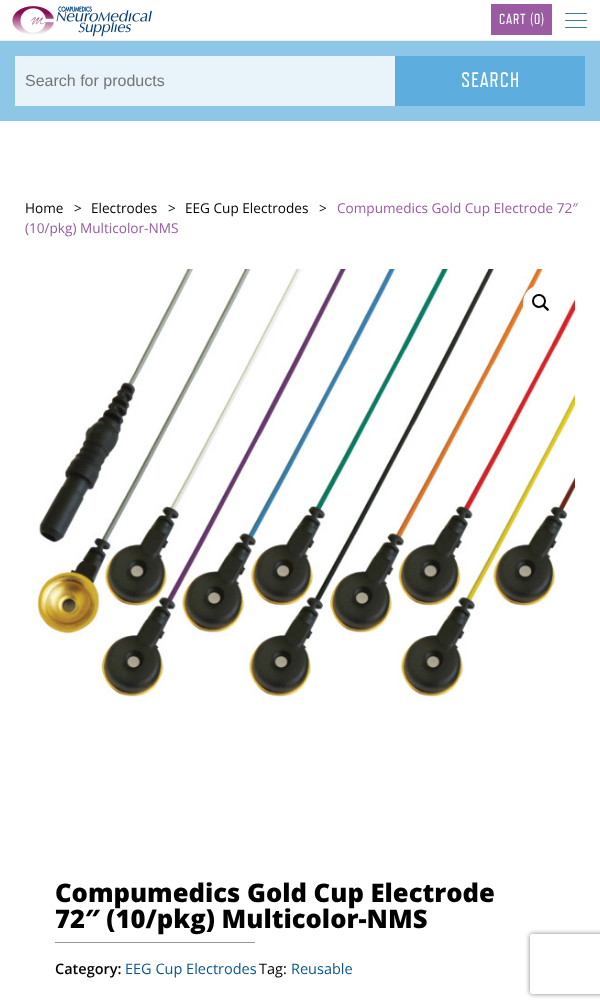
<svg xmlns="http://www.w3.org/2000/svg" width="600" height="1008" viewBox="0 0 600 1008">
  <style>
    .t1 { font: 14.5px 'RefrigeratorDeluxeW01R'; letter-spacing: 0.75px; fill: #fff; }
    .t2 { font: 16px Liberation Sans; fill: #757575; }
    .t3 { font: 21px 'RefrigeratorDeluxeW01R'; letter-spacing: 1px; fill: #fff; }
    .t4 { font: 13.6px Open Sans; fill: #000; }
    .t5 { font: 13.6px Open Sans; fill: #9a5ba3; }
    .t6 { font: 800 25.6px Open Sans; fill: #000; }
    .t7 { font: 600 14.5px Open Sans; fill: #000; }
    .t8 { font: 14.5px Open Sans; fill: #0a568d; }
    .t9 { font: 14.5px Open Sans; fill: #000; }
  </style>
  <defs>
    <clipPath id="clip1"><path d="M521 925H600V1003H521ZM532 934H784C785 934 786 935 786 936V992C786 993 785 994 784 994H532C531 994 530 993 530 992V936C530 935 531 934 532 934Z" clip-rule="evenodd"/></clipPath>
  </defs>
  <rect width="100%" height="100%" fill="#fff"/>
  <rect x="0" y="40" width="600" height="1" fill="#eee"/>
  <image x="12" y="6" width="140" height="31" href="images/1.png"/>
  <rect x="491" y="4" width="61" height="31" fill="#9a5ba3"/>
  <text x="499" y="24" class="t1">CART (0)</text>
  <rect x="565" y="13" width="22" height="1" rx="0.5" fill="#3b78a4"/>
  <rect x="565" y="20" width="22" height="1" rx="0.5" fill="#3b78a4"/>
  <rect x="565" y="27" width="22" height="1" rx="0.5" fill="#3b78a4"/>
  <rect x="0" y="41" width="600" height="80" fill="#8ec6e8"/>
  <rect x="15" y="56" width="380" height="50" fill="#e8f4fa"/>
  <text x="25" y="86" class="t2">Search for products</text>
  <rect x="395" y="56" width="190" height="50" fill="#5dadde"/>
  <text x="461" y="87" class="t3">SEARCH</text>
  <text x="25" y="213" class="t4">Home</text>
  <text x="74" y="213" class="t4">&gt;</text>
  <text x="91" y="213" class="t4">Electrodes</text>
  <text x="168" y="213" class="t4">&gt;</text>
  <text x="185" y="213" class="t4">EEG Cup Electrodes</text>
  <text x="319" y="213" class="t4">&gt;</text>
  <text x="337" y="213" class="t5">Compumedics Gold Cup Electrode 72″</text>
  <text x="25" y="233" class="t5">(10/pkg) Multicolor-NMS</text>
  <image x="33" y="269" width="542" height="432" href="images/2.png"/>
  <circle cx="541" cy="303" r="18" fill="#fff"/>
  <circle cx="539" cy="301" r="6" fill="none" stroke="#000" stroke-width="2"/>
  <path d="M543 305C544 304 546 306.5 546.5 307C547 307.5 550 309.5 548.5 310.5C547.5 312 545.5 309 545 308.5C544.5 308 542 306 543 305Z" fill="#000"/>
  <text x="55" y="902" class="t6">Compumedics Gold Cup Electrode</text>
  <text x="55" y="928" class="t6">72″ (10/pkg) Multicolor-NMS</text>
  <rect x="55" y="942" width="200" height="1" fill="#999"/>
  <text x="55" y="974" class="t7">Category:</text>
  <text x="125" y="974" class="t8">EEG Cup Electrodes</text>
  <text x="259" y="974" class="t9">Tag:</text>
  <text x="291" y="974" class="t8">Reusable</text>
  <g clip-path="url(#clip1)">
    <rect x="530" y="934" width="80" height="60" rx="2" fill="#808080" filter="blur(2.5px)"/>
  </g>
</svg>
